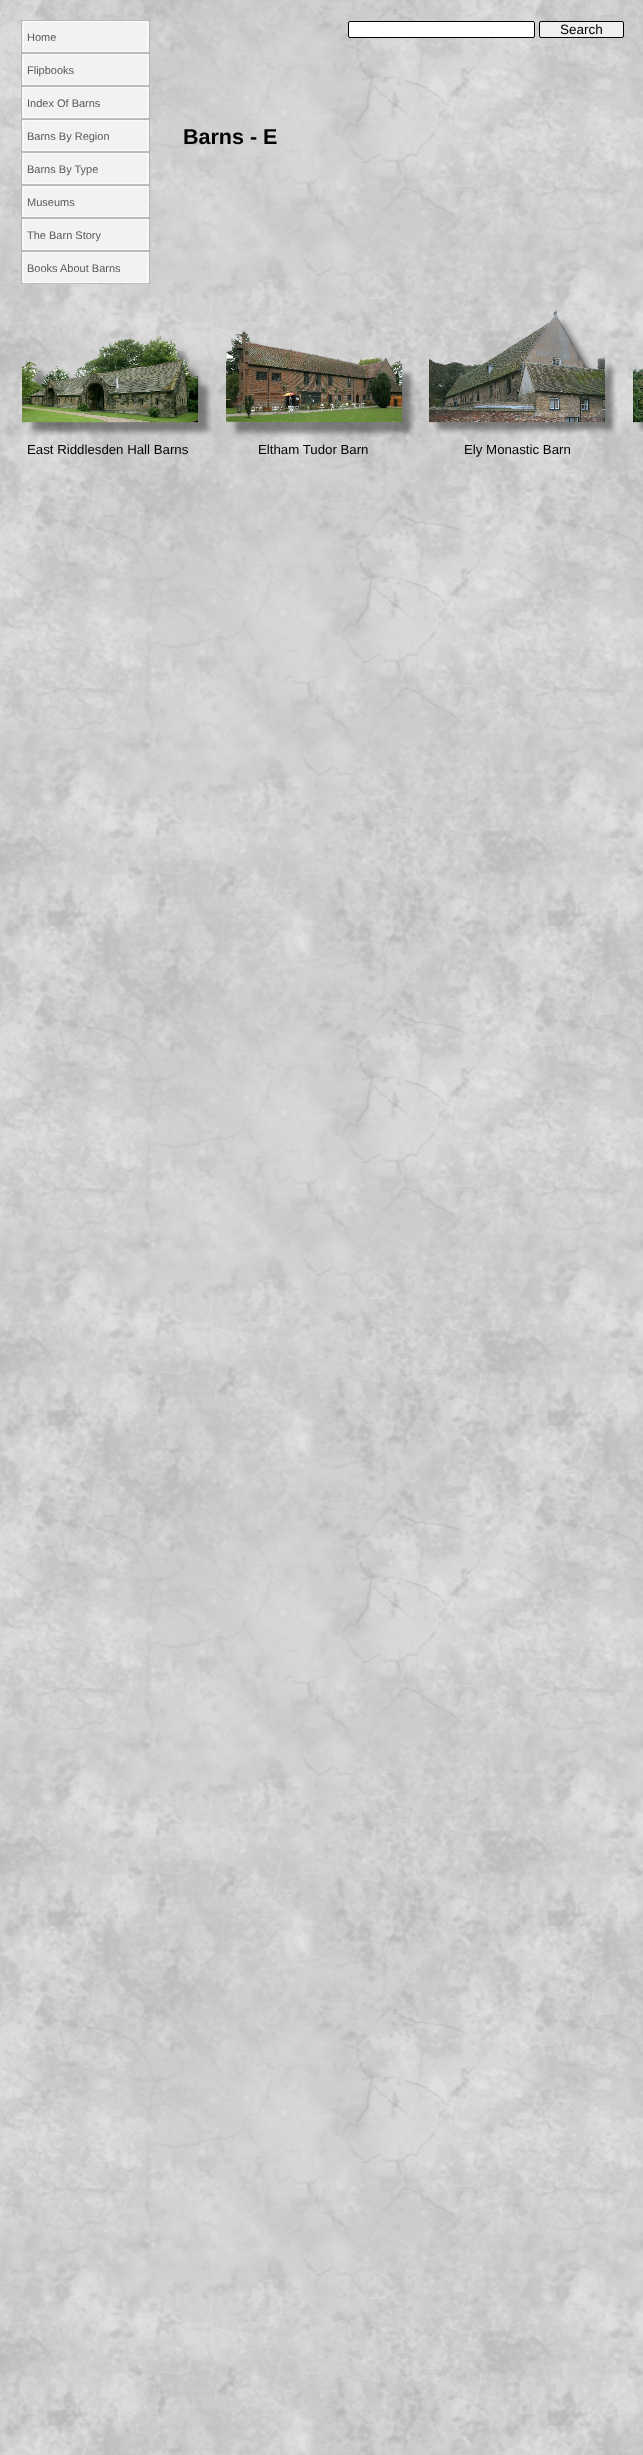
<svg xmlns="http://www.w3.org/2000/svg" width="643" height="2455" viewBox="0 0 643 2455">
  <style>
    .t1 { font: 13.5px Liberation Sans; fill: #000; }
    .t2 { font: 11px Liberation Sans; fill: #595959; }
    .t3 { font: bold 21.5px Liberation Sans; fill: #000; }
    .t4 { font: 13.25px Liberation Sans; fill: #000; }
  </style>
  <rect width="100%" height="100%" fill="#f8f8f8"/>
  <image x="0" y="0" width="643" height="2455" href="images/1.png"/>
  <rect x="348.5" y="21.5" width="186" height="16" rx="1.5" fill="#fff" stroke="#000"/>
  <rect x="539.5" y="21.5" width="84" height="16" rx="1.5" fill="#efefef" stroke="#000"/>
  <text x="560" y="34" class="t1">Search</text>
  <image x="21" y="20" width="129" height="33" href="images/2.png"/>
  <text x="27" y="41" class="t2">Home</text>
  <image x="21" y="53" width="129" height="33" href="images/2.png"/>
  <text x="27" y="74" class="t2">Flipbooks</text>
  <image x="21" y="86" width="129" height="33" href="images/2.png"/>
  <text x="27" y="107" class="t2">Index Of Barns</text>
  <image x="21" y="119" width="129" height="33" href="images/2.png"/>
  <text x="27" y="140" class="t2">Barns By Region</text>
  <image x="21" y="152" width="129" height="33" href="images/2.png"/>
  <text x="27" y="173" class="t2">Barns By Type</text>
  <image x="21" y="185" width="129" height="33" href="images/2.png"/>
  <text x="27" y="206" class="t2">Museums</text>
  <image x="21" y="218" width="129" height="33" href="images/2.png"/>
  <text x="27" y="239" class="t2">The Barn Story</text>
  <image x="21" y="251" width="129" height="33" href="images/2.png"/>
  <text x="27" y="272" class="t2">Books About Barns</text>
  <text x="183" y="144" class="t3">Barns - E</text>
  <image x="22" y="335" width="190" height="101" href="images/3.png"/>
  <image x="226" y="330" width="189" height="107" href="images/4.png"/>
  <image x="429" y="309" width="188" height="125" href="images/5.png"/>
  <image x="633" y="368" width="10" height="64" href="images/6.png"/>
  <text x="27" y="454" class="t4">East Riddlesden Hall Barns</text>
  <text x="258" y="454" class="t4">Eltham Tudor Barn</text>
  <text x="464" y="454" class="t4">Ely Monastic Barn</text>
</svg>
